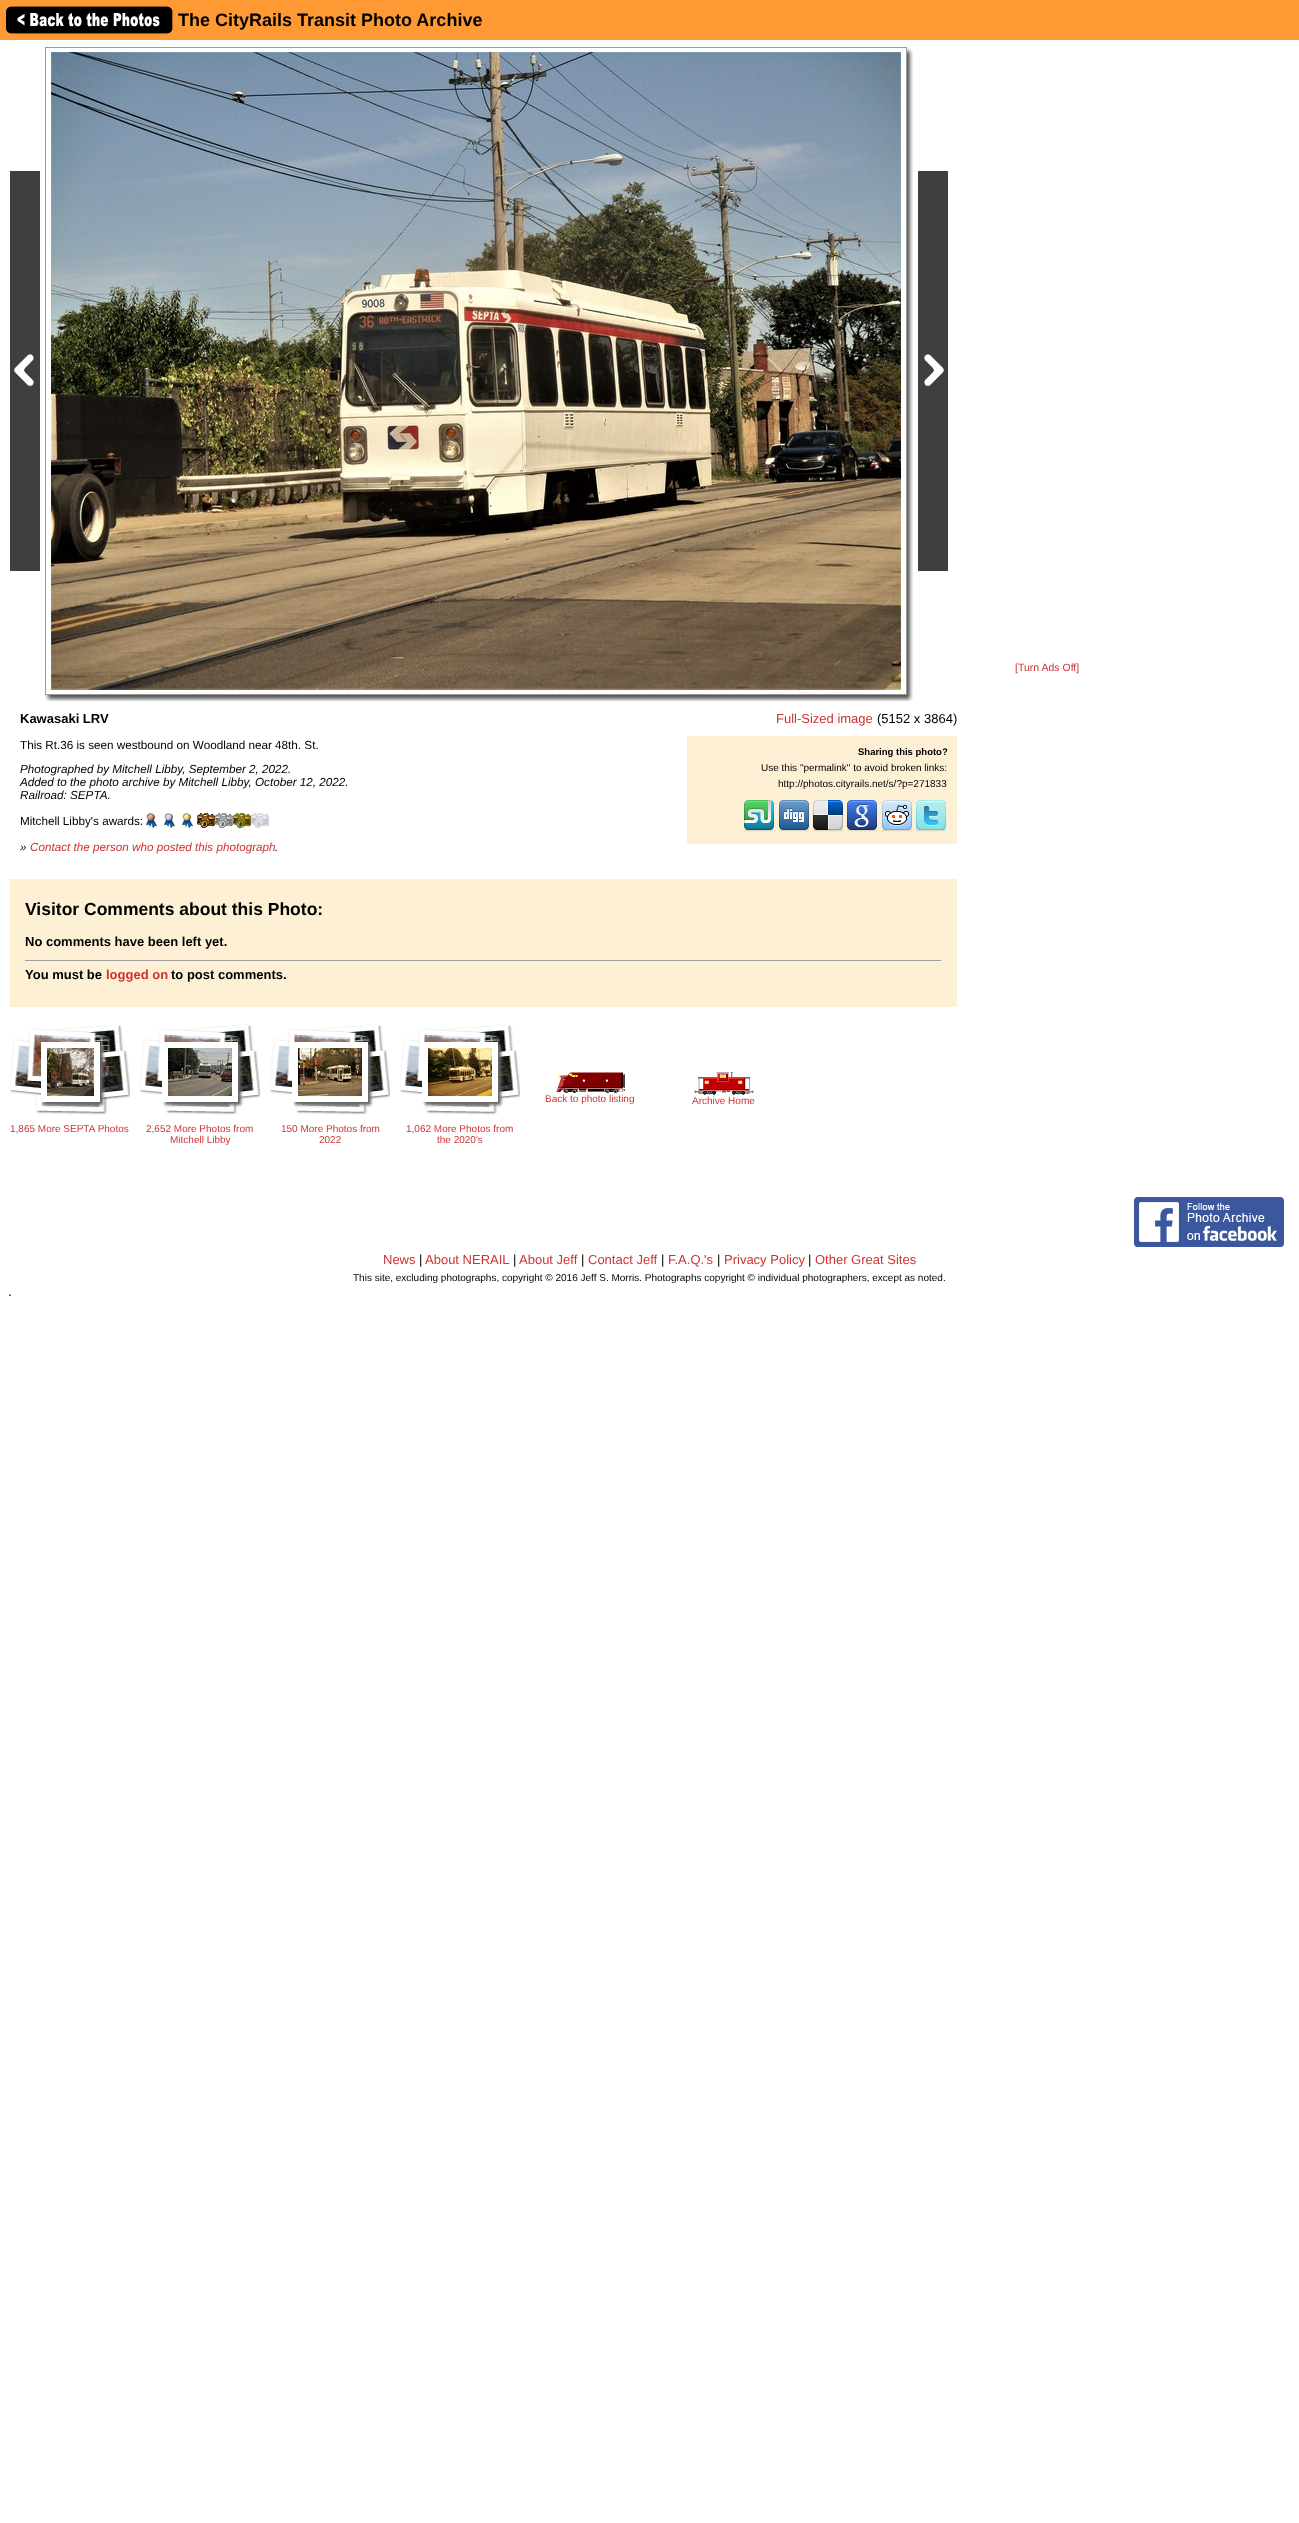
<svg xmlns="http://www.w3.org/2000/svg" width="1299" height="2523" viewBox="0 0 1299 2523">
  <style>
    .t1 { font: bold 18px Liberation Sans; fill: #000; }
    .t2 { font: 10.5px Liberation Sans; fill: #c33; }
    .t3 { font: bold 13px Liberation Sans; fill: #000; }
    .t4 { font: 11.7px Liberation Sans; fill: #000; }
    .t5 { font: italic 11.7px Liberation Sans; fill: #000; }
    .t6 { font: italic 11.7px Liberation Sans; fill: #c33; }
    .t7 { font: 13px Liberation Sans; fill: #c33; }
    .t8 { font: 13px Liberation Sans; fill: #000; }
    .t9 { font: bold 9.5px Liberation Sans; fill: #000; }
    .t10 { font: 10px Liberation Sans; fill: #000; }
    .t11 { font: bold 17.5px Liberation Sans; fill: #000; }
    .t12 { font: bold 13px Liberation Sans; fill: #c33; }
    .t13 { font: 10px Liberation Sans; fill: #c33; }
    .t14 { font: 14px Liberation Sans; fill: #000; }
  </style>
  <rect width="100%" height="100%" fill="#fff"/>
  <rect x="0" y="0" width="1299" height="40" fill="#f93"/>
  <image x="6" y="6" width="167" height="28" href="images/1.png"/>
  <text x="178" y="26" class="t1">The CityRails Transit Photo Archive</text>
  <text x="1015" y="671" class="t2">[Turn Ads Off]</text>
  <image x="10" y="171" width="30" height="400" href="images/2.png"/>
  <rect x="45.5" y="47.5" width="861" height="647" fill="none" stroke="#9a9a9a"/>
  <image x="51" y="52" width="850" height="638" href="images/3.png"/>
  <image x="907" y="47" width="6" height="648" href="images/4.png"/>
  <image x="918" y="171" width="30" height="400" href="images/5.png"/>
  <image x="45" y="695" width="862" height="6" href="images/6.png"/>
  <image x="907" y="695" width="6" height="6" href="images/7.png"/>
  <text x="20" y="723" class="t3">Kawasaki LRV</text>
  <text x="20" y="749" class="t4">This Rt.36 is seen westbound on Woodland near 48th. St.</text>
  <text x="20" y="773" class="t5">Photographed by Mitchell Libby, September 2, 2022.</text>
  <text x="20" y="786" class="t5">Added to the photo archive by Mitchell Libby, October 12, 2022.</text>
  <text x="20" y="799" class="t5">Railroad: SEPTA.</text>
  <text x="20" y="825" class="t4">Mitchell Libby's awards:</text>
  <image x="146" y="813" width="11" height="15" href="images/8.png"/>
  <image x="164" y="813" width="11" height="15" href="images/9.png"/>
  <image x="182" y="813" width="11" height="15" href="images/10.png"/>
  <image x="197" y="813" width="18" height="15" href="images/11.png"/>
  <image x="215" y="813" width="18" height="15" href="images/12.png"/>
  <image x="233" y="813" width="18" height="15" href="images/13.png"/>
  <image x="251" y="813" width="18" height="15" href="images/14.png"/>
  <text x="20" y="851" class="t5">»</text>
  <text x="30" y="851" class="t6">Contact the person who posted this photograph</text>
  <text x="275" y="851" class="t5">.</text>
  <text x="776" y="723" class="t7">Full-Sized image</text>
  <text x="877" y="723" class="t8">(5152 x 3864)</text>
  <rect x="687" y="736" width="270" height="108" fill="#fdf0d5"/>
  <text x="858" y="755" class="t9">Sharing this photo?</text>
  <text x="761" y="771" class="t10">Use this "permalink" to avoid broken links:</text>
  <text x="778" y="787" class="t10">http://photos.cityrails.net/s/?p=271833</text>
  <image x="744" y="800" width="30" height="32" href="images/15.png"/>
  <image x="779" y="800" width="30" height="32" href="images/16.png"/>
  <image x="812" y="800" width="32" height="32" href="images/17.png"/>
  <image x="847" y="800" width="30" height="32" href="images/18.png"/>
  <image x="882" y="800" width="30" height="32" href="images/19.png"/>
  <image x="916" y="800" width="30" height="32" href="images/20.png"/>
  <rect x="10" y="879" width="947" height="128" fill="#fdf0d5"/>
  <text x="25" y="915" class="t11">Visitor Comments about this Photo:</text>
  <text x="25" y="946" class="t3">No comments have been left yet.</text>
  <rect x="25" y="960" width="917" height="1" fill="#9f9f9f"/>
  <rect x="941" y="960" width="1" height="1" fill="#eee"/>
  <text x="25" y="979" class="t3">You must be</text>
  <text x="106" y="979" class="t12">logged on</text>
  <text x="171" y="979" class="t3">to post comments.</text>
  <image x="556" y="1072" width="69" height="21" href="images/21.png"/>
  <text x="545" y="1102" class="t13">Back to photo listing</text>
  <image x="694" y="1072" width="60" height="23" href="images/22.png"/>
  <text x="692" y="1104" class="t13">Archive Home</text>
  <image x="10" y="1024" width="120" height="91" href="images/23.png"/>
  <rect x="44" y="1045" width="59" height="60" fill="#666" filter="blur(1.5px)"/>
  <rect x="41" y="1042" width="59" height="60" fill="#fff"/>
  <image x="47" y="1048" width="47" height="48" href="images/24.png"/>
  <text x="10" y="1132" class="t13">1,865 More SEPTA Photos</text>
  <image x="140" y="1024" width="120" height="91" href="images/23.png"/>
  <rect x="165" y="1045" width="76" height="60" fill="#666" filter="blur(1.5px)"/>
  <rect x="162" y="1042" width="76" height="60" fill="#fff"/>
  <image x="168" y="1048" width="64" height="48" href="images/25.png"/>
  <text x="146" y="1132" class="t13">2,652 More Photos from</text>
  <text x="170" y="1143" class="t13">Mitchell Libby</text>
  <image x="270" y="1024" width="120" height="91" href="images/23.png"/>
  <rect x="295" y="1045" width="76" height="60" fill="#666" filter="blur(1.5px)"/>
  <rect x="292" y="1042" width="76" height="60" fill="#fff"/>
  <image x="298" y="1048" width="64" height="48" href="images/26.png"/>
  <text x="281" y="1132" class="t13">150 More Photos from</text>
  <text x="319" y="1143" class="t13">2022</text>
  <image x="400" y="1024" width="120" height="91" href="images/23.png"/>
  <rect x="425" y="1045" width="76" height="60" fill="#666" filter="blur(1.5px)"/>
  <rect x="422" y="1042" width="76" height="60" fill="#fff"/>
  <image x="428" y="1048" width="64" height="48" href="images/27.png"/>
  <text x="406" y="1132" class="t13">1,062 More Photos from</text>
  <text x="437" y="1143" class="t13">the 2020's</text>
  <image x="1134" y="1197" width="150" height="50" href="images/28.png"/>
  <text x="383" y="1264" class="t7">News</text>
  <text x="419" y="1264" class="t8">|</text>
  <text x="425" y="1264" class="t7">About NERAIL</text>
  <text x="513" y="1264" class="t8">|</text>
  <text x="519" y="1264" class="t7">About Jeff</text>
  <text x="581" y="1264" class="t8">|</text>
  <text x="588" y="1264" class="t7">Contact Jeff</text>
  <text x="661" y="1264" class="t8">|</text>
  <text x="668" y="1264" class="t7">F.A.Q.'s</text>
  <text x="717" y="1264" class="t8">|</text>
  <text x="724" y="1264" class="t7">Privacy Policy</text>
  <text x="808" y="1264" class="t8">|</text>
  <text x="815" y="1264" class="t7">Other Great Sites</text>
  <text x="353" y="1281" class="t10">This site, excluding photographs, copyright © 2016 Jeff S. Morris. Photographs copyright © individual photographers, except as noted.</text>
  <text x="8" y="1296" class="t14">.</text>
</svg>
